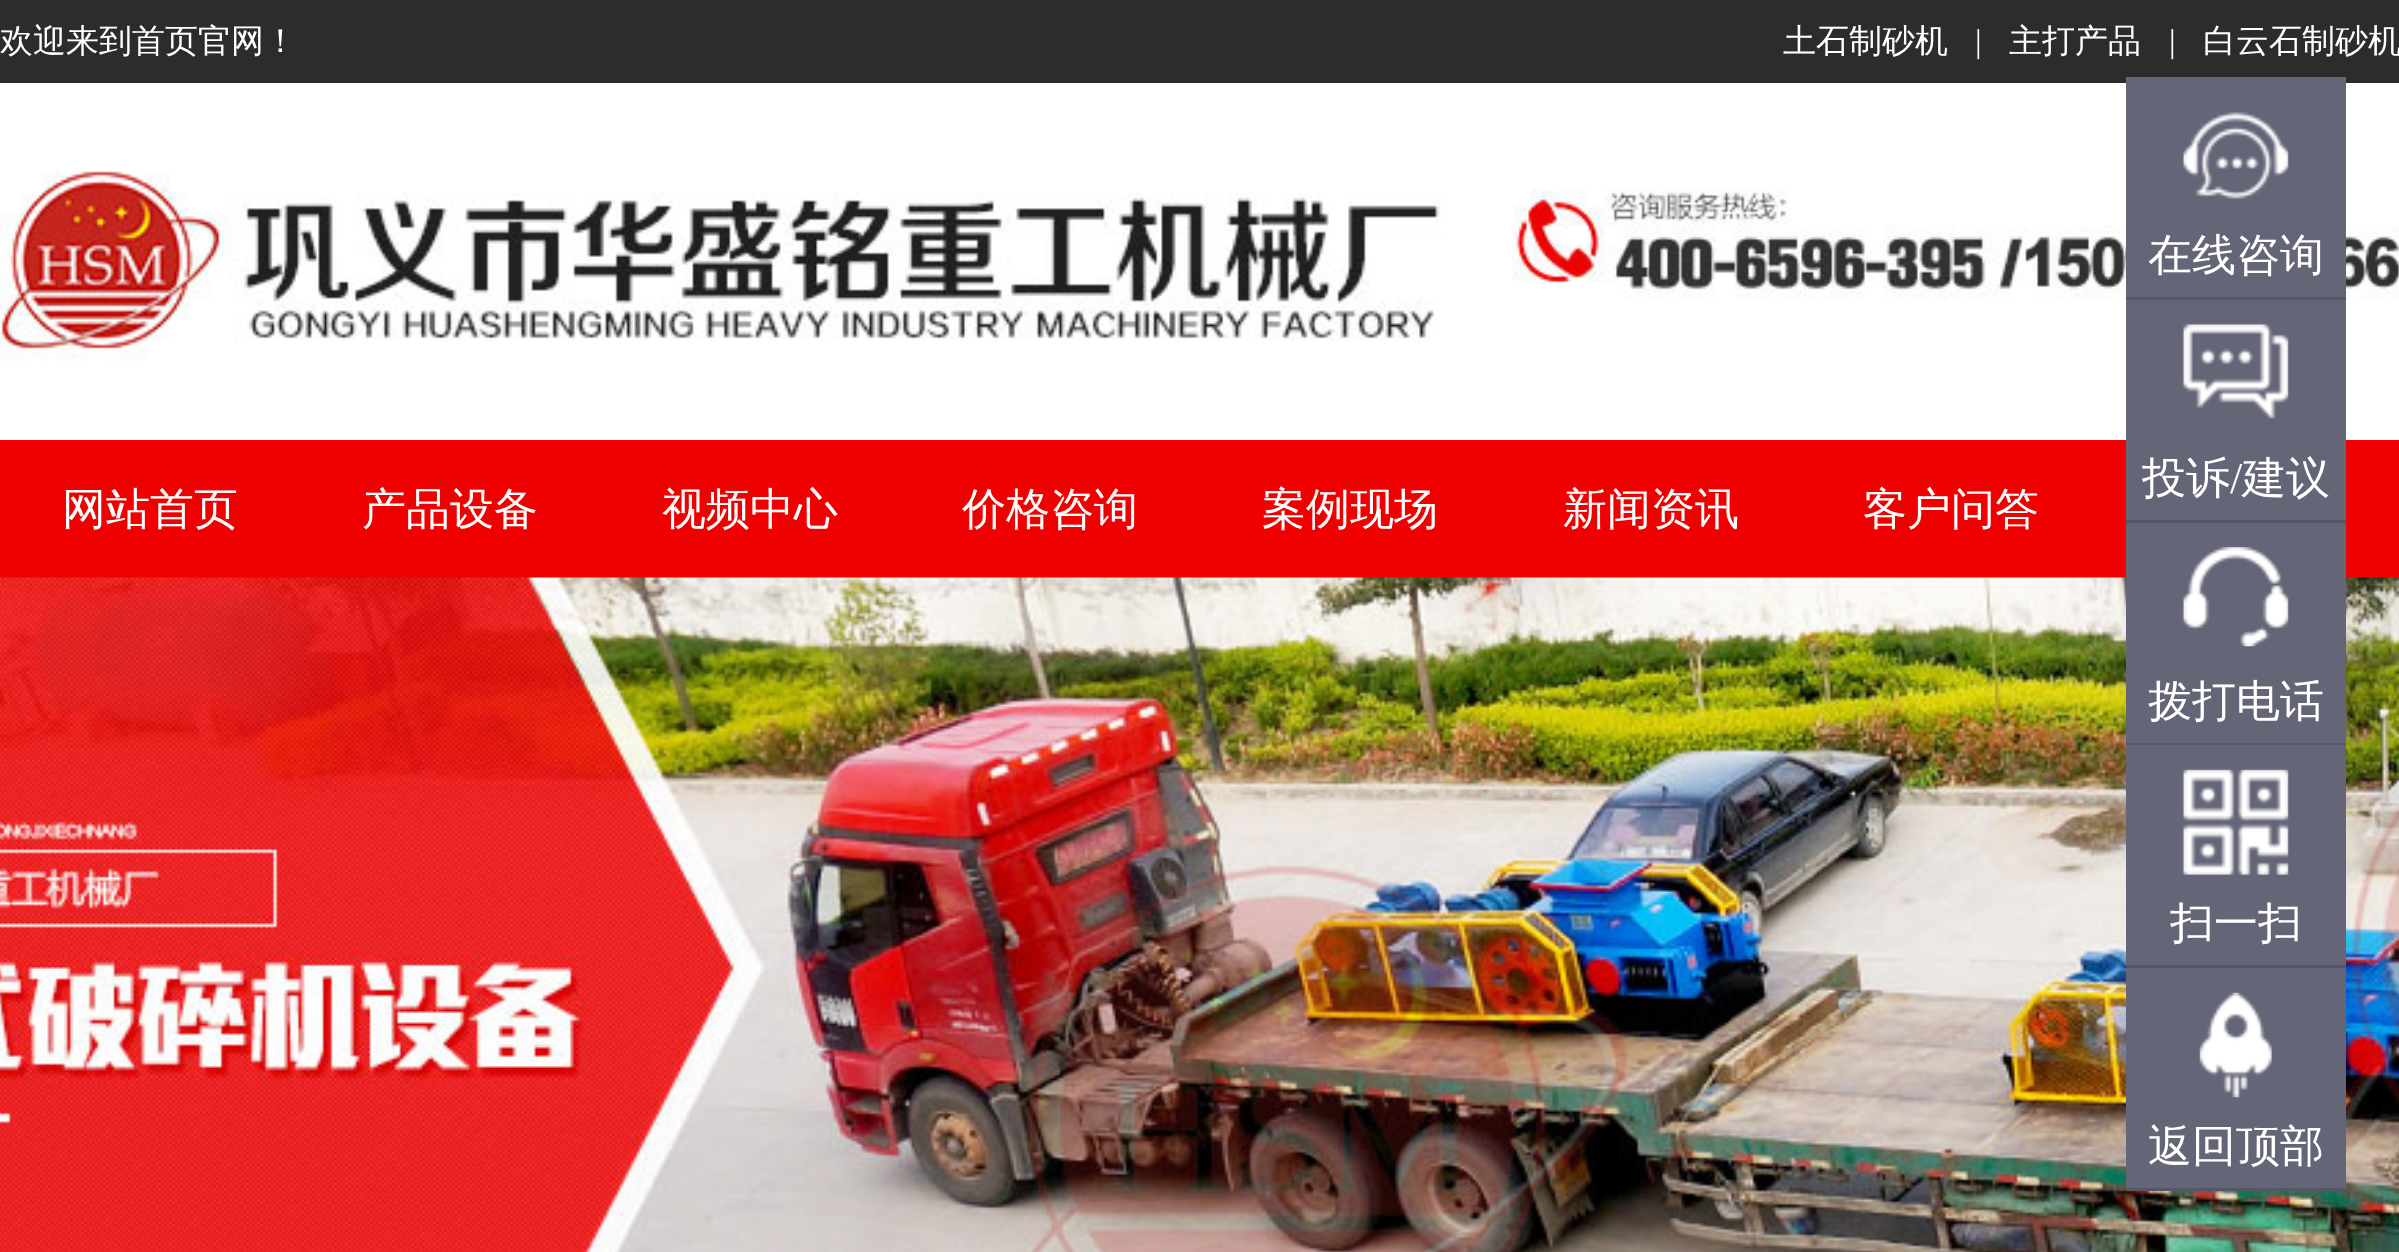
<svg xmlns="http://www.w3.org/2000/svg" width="2399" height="1252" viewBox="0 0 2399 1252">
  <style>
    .t1 { font: 500 33px WenQuanYi Zen Hei; fill: #fff; }
    .t2 { font: 33px Liberation Serif; fill: #fff; }
    .t3 { font: 500 44px WenQuanYi Zen Hei; fill: #fff; }
    .t4 { font: 44px Liberation Serif; fill: #fff; }
  </style>
  <rect width="100%" height="100%" fill="#fff"/>
  <rect x="0" y="0" width="2399" height="83" fill="#2c2c2c"/>
  <text x="0" y="52" class="t1">欢迎来到首页官网！</text>
  <text x="1783" y="52" class="t1">土石制砂机</text>
  <text x="1975" y="52" class="t2">|</text>
  <text x="2009" y="52" class="t1">主打产品</text>
  <text x="2169" y="52" class="t2">|</text>
  <text x="2203" y="52" class="t1">白云石制砂机</text>
  <image x="0" y="171" width="1441" height="190" href="images/1.png"/>
  <image x="1512" y="188" width="887" height="112" href="images/2.png"/>
  <rect x="0" y="440" width="2399" height="138" fill="#ef0101"/>
  <text x="62" y="524" class="t3">网站首页</text>
  <text x="362" y="524" class="t3">产品设备</text>
  <text x="662" y="524" class="t3">视频中心</text>
  <text x="962" y="524" class="t3">价格咨询</text>
  <text x="1262" y="524" class="t3">案例现场</text>
  <text x="1563" y="524" class="t3">新闻资讯</text>
  <text x="1863" y="524" class="t3">客户问答</text>
  <rect x="2126" y="77" width="220" height="220" fill="#646577"/>
  <image x="2182" y="112" width="107" height="87" href="images/3.png"/>
  <rect x="2126" y="297" width="220" height="3" fill="#555666"/>
  <text x="2148" y="270" class="t3">在线咨询</text>
  <rect x="2126" y="300" width="220" height="220" fill="#646577"/>
  <image x="2182" y="323" width="107" height="96" href="images/4.png"/>
  <rect x="2126" y="520" width="220" height="3" fill="#555666"/>
  <text x="2142" y="493" class="t3">投诉</text>
  <text x="2230" y="493" class="t4">/</text>
  <text x="2242" y="493" class="t3">建议</text>
  <image x="0" y="577" width="2399" height="675" href="images/8.png"/>
  <rect x="2126" y="523" width="220" height="220" fill="#646577"/>
  <image x="2182" y="547" width="107" height="100" href="images/5.png"/>
  <rect x="2126" y="743" width="220" height="2" fill="#555666"/>
  <text x="2148" y="716" class="t3">拨打电话</text>
  <rect x="2126" y="745" width="220" height="220" fill="#646577"/>
  <image x="2182" y="769" width="107" height="106" href="images/6.png"/>
  <rect x="2126" y="965" width="220" height="3" fill="#555666"/>
  <text x="2170" y="938" class="t3">扫一扫</text>
  <rect x="2126" y="968" width="220" height="220" fill="#646577"/>
  <image x="2199" y="992" width="73" height="106" href="images/7.png"/>
  <rect x="2126" y="1188" width="220" height="3" fill="#555666"/>
  <text x="2148" y="1161" class="t3">返回顶部</text>
</svg>
